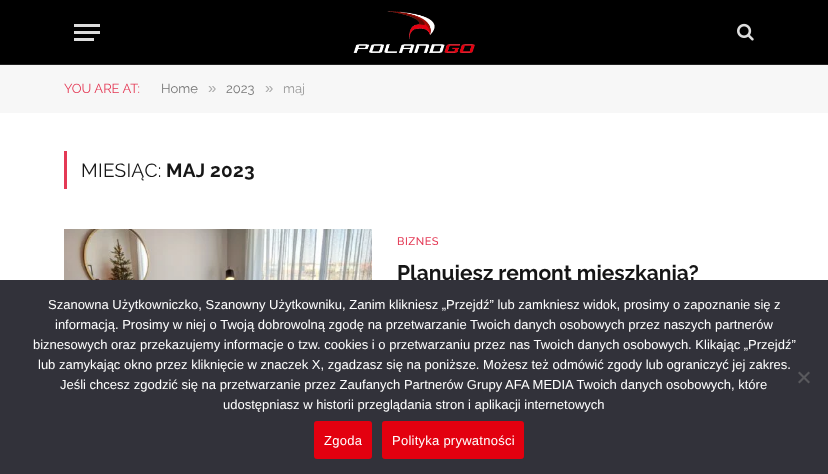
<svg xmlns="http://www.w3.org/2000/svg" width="828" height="474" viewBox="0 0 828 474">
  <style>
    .t1 { font: 13px Raleway; fill: #e43955; }
    .t2 { font: 13px Raleway; fill: #777; }
    .t3 { font: 15px Liberation Sans; fill: #acacac; }
    .t4 { font: 13px Raleway; fill: #999; }
    .t5 { font: 19px Raleway; letter-spacing: 0.25px; fill: #161616; }
    .t6 { font: bold 19px Raleway; letter-spacing: 0.25px; fill: #161616; }
    .t7 { font: 500 11px Raleway; letter-spacing: 0.5px; fill: #e43955; }
    .t8 { font: bold 21px Raleway; fill: #161616; }
    .t9 { font: 13px Liberation Sans; fill: #fff; }
    .t10 { font: 13px Liberation Sans; letter-spacing: 0.25px; fill: #fff; }
  </style>
  <rect width="100%" height="100%" fill="#fff"/>
  <rect x="0" y="0" width="828" height="64" fill="#000"/>
  <rect x="0" y="64" width="828" height="1" fill="#222"/>
  <rect x="74" y="38" width="20" height="3" fill="#ddd"/>
  <rect x="74" y="24" width="26" height="3" fill="#ddd"/>
  <rect x="74" y="31" width="26" height="3" fill="#ddd"/>
  <image x="353" y="11" width="122" height="42" href="images/1.png"/>
  <image x="737" y="23" width="17" height="18" href="images/2.png"/>
  <rect x="0" y="65" width="828" height="48" fill="#f7f7f7"/>
  <text x="64" y="93" class="t1">YOU ARE AT:</text>
  <text x="161" y="93" class="t2">Home</text>
  <text x="208" y="93" class="t3">»</text>
  <text x="226" y="93" class="t2">2023</text>
  <text x="265" y="93" class="t3">»</text>
  <text x="283" y="93" class="t4">maj</text>
  <rect x="64" y="151" width="3" height="38" fill="#e43955"/>
  <text x="81" y="177" class="t5">MIESIĄC:</text>
  <text x="166" y="177" class="t6">MAJ 2023</text>
  <image x="64" y="229" width="308" height="51" href="images/3.png"/>
  <text x="397" y="245" class="t7">BIZNES</text>
  <text x="397" y="280" class="t8">Planujesz remont mieszkania?</text>
  <rect x="0" y="280" width="828" height="194" fill="#32323a"/>
  <text x="48" y="309" class="t9">Szanowna Użytkowniczko, Szanowny Użytkowniku, Zanim klikniesz „Przejdź” lub zamkniesz widok, prosimy o zapoznanie się z</text>
  <text x="55" y="329" class="t9">informacją. Prosimy w niej o Twoją dobrowolną zgodę na przetwarzanie Twoich danych osobowych przez naszych partnerów</text>
  <text x="33" y="349" class="t9">biznesowych oraz przekazujemy informacje o tzw. cookies i o przetwarzaniu przez nas Twoich danych osobowych. Klikając „Przejdź”</text>
  <text x="38" y="369" class="t9">lub zamykając okno przez kliknięcie w znaczek X, zgadzasz się na poniższe. Możesz też odmówić zgody lub ograniczyć jej zakres.</text>
  <text x="60" y="389" class="t9">Jeśli chcesz zgodzić się na przetwarzanie przez Zaufanych Partnerów Grupy AFA MEDIA Twoich danych osobowych, które</text>
  <text x="223" y="409" class="t9">udostępniasz w historii przeglądania stron i aplikacji internetowych</text>
  <path d="M808.5 371.5L810 373L799.5 383.5L798 382Z" fill="#59595d"/>
  <path d="M798 373L799.5 371.5L810 382L808.5 383.5Z" fill="#59595d"/>
  <rect x="314" y="421" width="58" height="38" rx="3" fill="#e3000f"/>
  <text x="324" y="445" class="t10">Zgoda</text>
  <rect x="382" y="421" width="142" height="38" rx="3" fill="#e3000f"/>
  <text x="392" y="445" class="t10">Polityka prywatności</text>
</svg>
